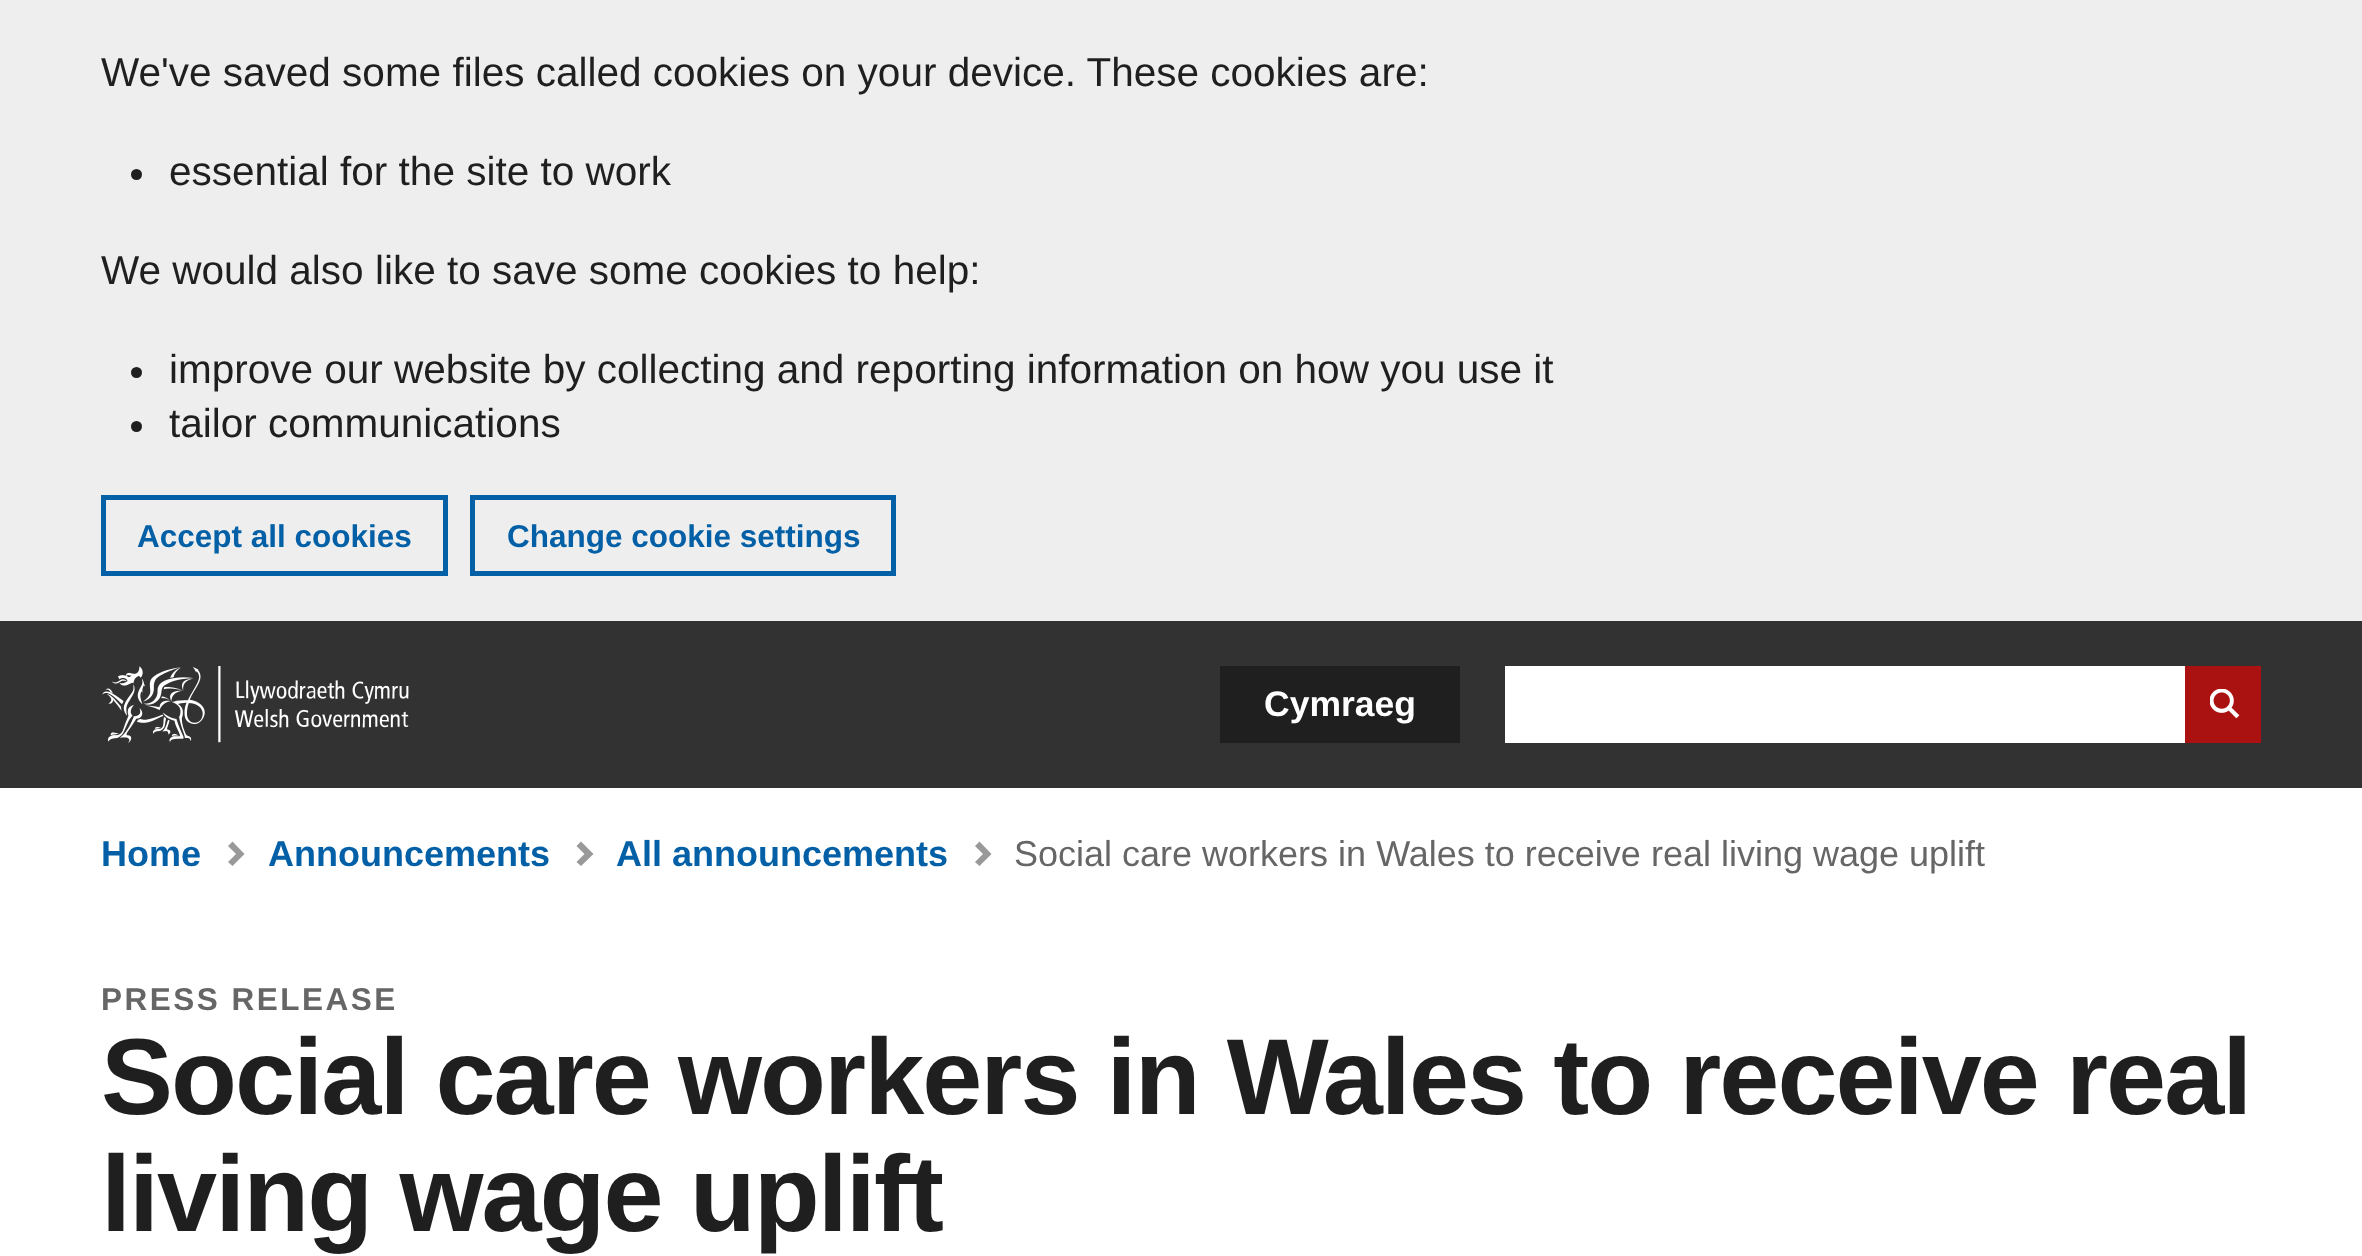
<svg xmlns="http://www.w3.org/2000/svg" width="2362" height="1256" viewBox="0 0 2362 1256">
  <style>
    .t1 { font: 40.5px Liberation Sans; fill: #1f1f1f; }
    .t2 { font: bold 31.5px Liberation Sans; fill: #0360a6; }
    .t3 { font: bold 35.5px Liberation Sans; fill: #fff; }
    .t4 { font: bold 36px Liberation Sans; fill: #0360a6; }
    .t5 { font: 36px Liberation Sans; fill: #666; }
    .t6 { font: bold 31.5px Liberation Sans; letter-spacing: 2.5px; fill: #666; }
    .t7 { font: bold 108px Liberation Sans; letter-spacing: -1.95px; fill: #1f1f1f; }
  </style>
  <rect width="100%" height="100%" fill="#eee"/>
  <text x="101" y="86" class="t1">We've saved some files called cookies on your device. These cookies are:</text>
  <circle cx="136.5" cy="174.5" r="5.5" fill="#1f1f1f"/>
  <text x="169" y="185" class="t1">essential for the site to work</text>
  <text x="101" y="284" class="t1">We would also like to save some cookies to help:</text>
  <circle cx="136.5" cy="372.5" r="5.5" fill="#1f1f1f"/>
  <text x="169" y="383" class="t1">improve our website by collecting and reporting information on how you use it</text>
  <circle cx="136.5" cy="426.5" r="5.5" fill="#1f1f1f"/>
  <text x="169" y="437" class="t1">tailor communications</text>
  <rect x="103.5" y="497.5" width="342" height="76" fill="none" stroke="#0360a6" stroke-width="5"/>
  <text x="137" y="547" class="t2">Accept all cookies</text>
  <rect x="472.5" y="497.5" width="421" height="76" fill="none" stroke="#0360a6" stroke-width="5"/>
  <text x="507" y="547" class="t2">Change cookie settings</text>
  <rect x="0" y="621" width="2362" height="167" fill="#323232"/>
  <image x="102" y="666" width="307" height="77" href="images/1.png"/>
  <rect x="1220" y="666" width="240" height="77" fill="#1f1f1f"/>
  <text x="1264" y="716" class="t3">Cymraeg</text>
  <rect x="1505" y="666" width="680" height="77" fill="#fff"/>
  <rect x="2185" y="666" width="76" height="77" fill="#a11"/>
  <image x="2210" y="689" width="30" height="30" href="images/2.png"/>
  <rect x="0" y="788" width="2362" height="468" fill="#fff"/>
  <path d="M244.5 854L232.5 841.5L228 846L236 854L228 862L232.5 866Z" fill="#999"/>
  <text x="101" y="866" class="t4">Home</text>
  <path d="M593.5 854L581 841.5L576.5 846L584.5 854L576.5 862L581 866Z" fill="#999"/>
  <text x="268" y="866" class="t4">Announcements</text>
  <path d="M991.5 854L979.5 841.5L975 846L983 854L975 862L979.5 866Z" fill="#999"/>
  <text x="616" y="866" class="t4">All announcements</text>
  <text x="1014" y="866" class="t5">Social care workers in Wales to receive real living wage uplift</text>
  <text x="101" y="1010" class="t6">PRESS RELEASE</text>
  <text x="101" y="1114" class="t7">Social care workers in Wales to receive real</text>
  <text x="101" y="1231" class="t7">living wage uplift</text>
</svg>
